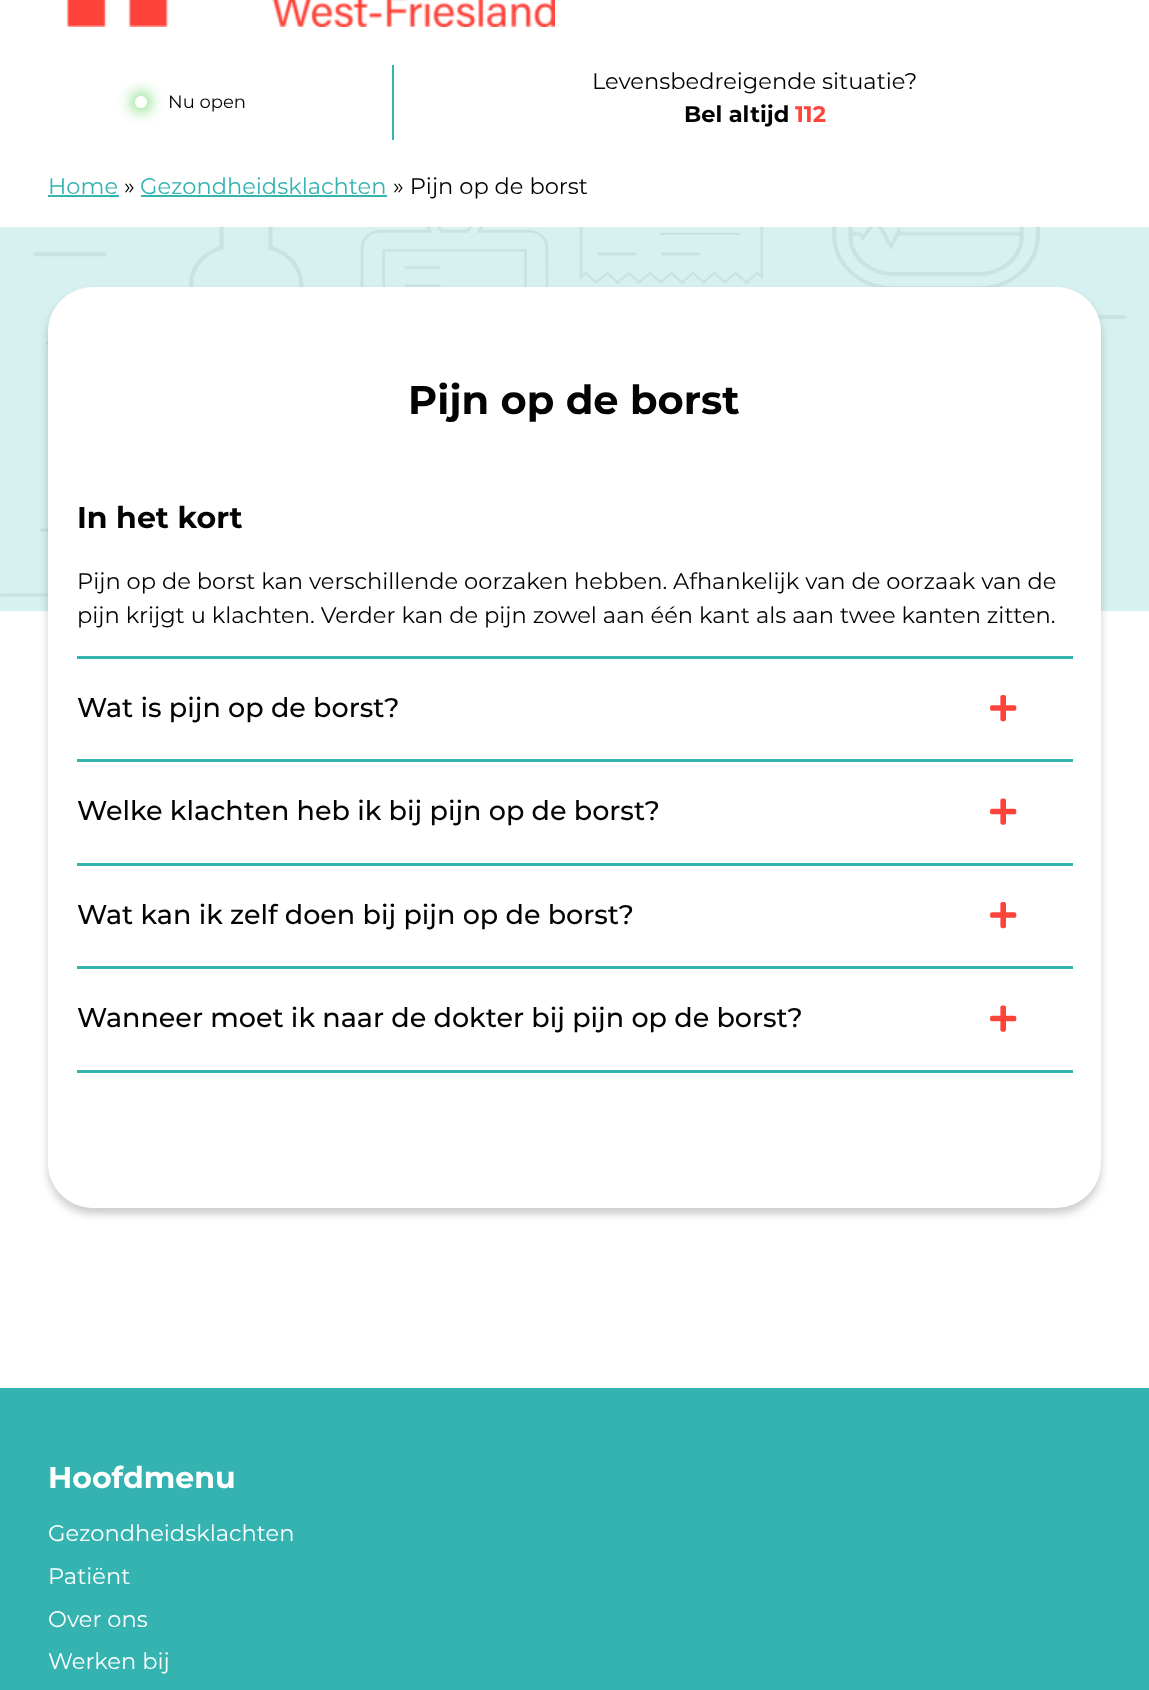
<svg xmlns="http://www.w3.org/2000/svg" width="1149" height="1690" viewBox="0 0 1149 1690">
  <style>
    .t1 { font: 18px Montserrat; fill: #030303; }
    .t2 { font: 22.55px Montserrat; fill: #030303; }
    .t3 { font: bold 22.55px Montserrat; fill: #030303; }
    .t4 { font: bold 22.55px Montserrat; fill: #fd443a; }
    .t5 { font: 22.55px Montserrat; fill: #34b3b1; }
    .t6 { font: bold 40px Montserrat; fill: #030303; }
    .t7 { font: bold 30px Montserrat; fill: #030303; }
    .t8 { font: 500 27px Montserrat; fill: #030303; }
    .t9 { font: bold 30px Montserrat; fill: #fff; }
    .t10 { font: 22.55px Montserrat; fill: #fff; }
  </style>
  <defs>
    <clipPath id="clip1"><path d="M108 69H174V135H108ZM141 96C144.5 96 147 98.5 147 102C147 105.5 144.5 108 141 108C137.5 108 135 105.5 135 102C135 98.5 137.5 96 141 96Z" clip-rule="evenodd"/></clipPath>
  </defs>
  <rect width="100%" height="100%" fill="#fff"/>
  <rect x="0" y="227" width="1149" height="384" fill="#d7f0f0"/>
  <image x="66" y="0" width="489" height="27" href="images/1.png"/>
  <rect x="392" y="65" width="2" height="75" fill="#34b3b1"/>
  <g clip-path="url(#clip1)">
    <rect x="132" y="93" width="18" height="18" rx="9" fill="#3ac936cc" filter="blur(7.5px)"/>
  </g>
  <text x="168" y="108" class="t1">Nu open</text>
  <text x="592" y="89" class="t2">Levensbedreigende situatie?</text>
  <text x="684" y="122" class="t3">Bel altijd</text>
  <text x="795" y="122" class="t4">112</text>
  <text x="48" y="194" class="t5">Home</text>
  <rect x="48" y="195" width="71" height="2" fill="#34b3b1"/>
  <text x="124" y="194" class="t2">»</text>
  <text x="140" y="194" class="t5">Gezondheidsklachten</text>
  <rect x="141" y="195" width="246" height="2" fill="#34b3b1"/>
  <text x="393" y="194" class="t2">» Pijn op de borst</text>
  <image x="0" y="226" width="1127" height="371" href="images/2.png"/>
  <rect x="48" y="293" width="1053" height="921" rx="45" fill="#33333340" filter="blur(4.5px)"/>
  <rect x="48" y="287" width="1053" height="921" rx="45" fill="#fff"/>
  <text x="408" y="414" class="t6">Pijn op de borst</text>
  <text x="77" y="528" class="t7">In het kort</text>
  <text x="77" y="589" class="t2">Pijn op de borst kan verschillende oorzaken hebben. Afhankelijk van de oorzaak van de</text>
  <text x="77" y="623" class="t2">pijn krijgt u klachten. Verder kan de pijn zowel aan één kant als aan twee kanten zitten.</text>
  <rect x="77" y="656" width="996" height="3" fill="#34b3b1"/>
  <text x="77" y="717" class="t8">Wat is pijn op de borst?</text>
  <image x="990" y="695" width="27" height="27" href="images/3.png"/>
  <rect x="77" y="759" width="996" height="3" fill="#34b3b1"/>
  <text x="77" y="820" class="t8">Welke klachten heb ik bij pijn op de borst?</text>
  <image x="990" y="798" width="27" height="27" href="images/4.png"/>
  <rect x="77" y="863" width="996" height="3" fill="#34b3b1"/>
  <text x="77" y="924" class="t8">Wat kan ik zelf doen bij pijn op de borst?</text>
  <image x="990" y="902" width="27" height="27" href="images/3.png"/>
  <rect x="77" y="966" width="996" height="3" fill="#34b3b1"/>
  <rect x="77" y="1070" width="996" height="3" fill="#34b3b1"/>
  <text x="77" y="1027" class="t8">Wanneer moet ik naar de dokter bij pijn op de borst?</text>
  <image x="990" y="1005" width="27" height="27" href="images/4.png"/>
  <rect x="0" y="1388" width="1149" height="302" fill="#34b3b1"/>
  <text x="48" y="1488" class="t9">Hoofdmenu</text>
  <text x="48" y="1541" class="t10">Gezondheidsklachten</text>
  <text x="48" y="1584" class="t10">Patiënt</text>
  <text x="48" y="1627" class="t10">Over ons</text>
  <text x="48" y="1669" class="t10">Werken bij</text>
</svg>
